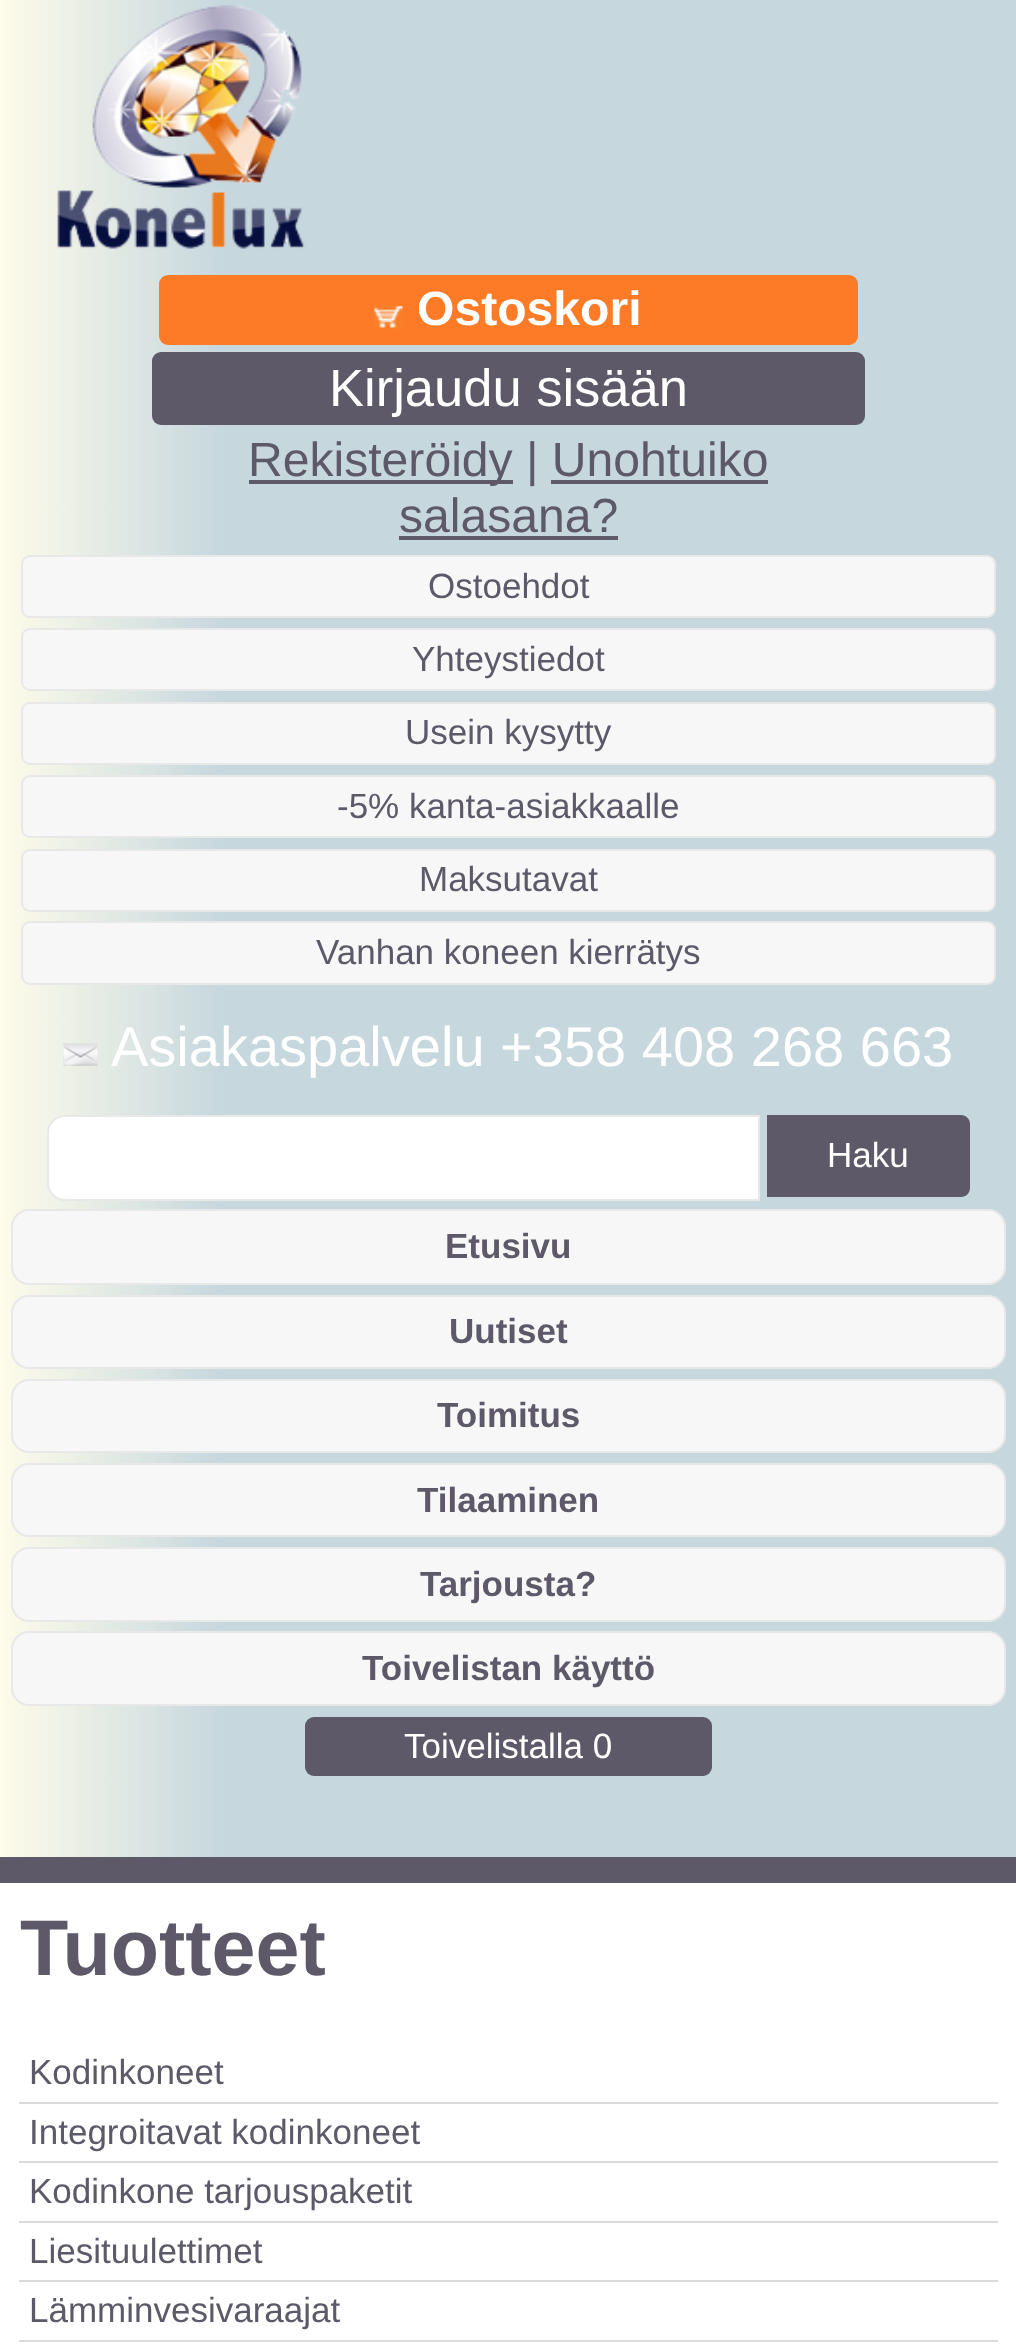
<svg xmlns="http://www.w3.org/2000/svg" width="1016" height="2347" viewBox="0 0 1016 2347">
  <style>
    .t1 { font: bold 48.1px Liberation Sans; fill: #fff; }
    .t2 { font: 52.5px Liberation Sans; fill: #fff; }
    .t3 { font: 48.1px Liberation Sans; fill: #5d5968; }
    .t4 { font: 35px Liberation Sans; fill: #5d5968; }
    .t5 { font: 56px Liberation Sans; fill: #fff; }
    .t6 { font: 35px Liberation Sans; fill: #fff; }
    .t7 { font: bold 35px Liberation Sans; fill: #5d5968; }
    .t8 { font: bold 79px Liberation Sans; fill: #5d5968; }
  </style>
  <defs>
    <linearGradient id="g1" gradientUnits="userSpaceOnUse" x1="0" y1="928" x2="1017" y2="928"><stop offset="0" stop-color="#fefcea"/><stop offset="0.22" stop-color="#c6d7de"/></linearGradient>
  </defs>
  <rect width="100%" height="100%" fill="#fff"/>
  <rect x="0" y="0" width="1016" height="1857" fill="url(#g1)"/>
  <rect x="0" y="1857" width="1016" height="26" fill="#5d5968"/>
  <image x="57" y="5" width="248" height="244" href="images/1.png"/>
  <rect x="159" y="275" width="699" height="70" rx="9" fill="#fd7b27"/>
  <image x="374" y="304" width="29" height="25" href="images/2.png"/>
  <text x="417" y="325" class="t1">Ostoskori</text>
  <rect x="152" y="352" width="713" height="73" rx="9" fill="#5d5968"/>
  <text x="329" y="406" class="t2">Kirjaudu sisään</text>
  <rect x="249" y="480" width="264" height="4" fill="#5d5968"/>
  <text x="248" y="476" class="t3">Rekisteröidy | Unohtuiko</text>
  <text x="399" y="532" class="t3">salasana?</text>
  <rect x="551" y="480" width="217" height="4" fill="#5d5968"/>
  <rect x="399" y="536" width="219" height="4" fill="#5d5968"/>
  <rect x="22" y="556" width="973" height="61" rx="8" fill="#f7f7f7" stroke="#e8e8e8" stroke-width="2"/>
  <text x="428" y="598" class="t4">Ostoehdot</text>
  <rect x="22" y="629" width="973" height="61" rx="8" fill="#f7f7f7" stroke="#e8e8e8" stroke-width="2"/>
  <text x="412" y="671" class="t4">Yhteystiedot</text>
  <rect x="22" y="703" width="973" height="61" rx="8" fill="#f7f7f7" stroke="#e8e8e8" stroke-width="2"/>
  <text x="405" y="744" class="t4">Usein kysytty</text>
  <rect x="22" y="776" width="973" height="61" rx="8" fill="#f7f7f7" stroke="#e8e8e8" stroke-width="2"/>
  <text x="337" y="818" class="t4">-5% kanta-asiakkaalle</text>
  <rect x="22" y="850" width="973" height="61" rx="8" fill="#f7f7f7" stroke="#e8e8e8" stroke-width="2"/>
  <text x="419" y="891" class="t4">Maksutavat</text>
  <rect x="22" y="922" width="973" height="62" rx="8" fill="#f7f7f7" stroke="#e8e8e8" stroke-width="2"/>
  <text x="316" y="964" class="t4">Vanhan koneen kierrätys</text>
  <image x="63" y="1043" width="35" height="23" href="images/3.png"/>
  <text x="111" y="1066" class="t5">Asiakaspalvelu +358 408 268 663</text>
  <path d="M65 1116H759V1200H65C55.5 1200 48 1192.5 48 1183V1133C48 1123.5 55.5 1116 65 1116Z" fill="#fff" stroke="#e8e8e8" stroke-width="2"/>
  <path d="M767 1115H961C966 1115 970 1119 970 1124V1188C970 1193 966 1197 961 1197H767Z" fill="#5d5968"/>
  <text x="827" y="1167" class="t6">Haku</text>
  <rect x="12" y="1210" width="993" height="74" rx="17" fill="#f7f7f7" stroke="#e8e8e8" stroke-width="2"/>
  <text x="445" y="1258" class="t7">Etusivu</text>
  <rect x="12" y="1296" width="993" height="72" rx="17" fill="#f7f7f7" stroke="#e8e8e8" stroke-width="2"/>
  <text x="449" y="1343" class="t7">Uutiset</text>
  <rect x="12" y="1380" width="993" height="72" rx="17" fill="#f7f7f7" stroke="#e8e8e8" stroke-width="2"/>
  <text x="437" y="1427" class="t7">Toimitus</text>
  <rect x="12" y="1464" width="993" height="72" rx="17" fill="#f7f7f7" stroke="#e8e8e8" stroke-width="2"/>
  <text x="417" y="1512" class="t7">Tilaaminen</text>
  <rect x="12" y="1548" width="993" height="73" rx="17" fill="#f7f7f7" stroke="#e8e8e8" stroke-width="2"/>
  <text x="420" y="1596" class="t7">Tarjousta?</text>
  <rect x="12" y="1632" width="993" height="73" rx="17" fill="#f7f7f7" stroke="#e8e8e8" stroke-width="2"/>
  <text x="362" y="1680" class="t7">Toivelistan käyttö</text>
  <rect x="305" y="1717" width="407" height="59" rx="9" fill="#5d5968"/>
  <text x="404" y="1758" class="t6">Toivelistalla 0</text>
  <text x="20" y="1975" class="t8">Tuotteet</text>
  <rect x="19" y="2102" width="979" height="2" fill="#dbdbdb"/>
  <text x="29" y="2084" class="t4">Kodinkoneet</text>
  <rect x="19" y="2161" width="979" height="2" fill="#dbdbdb"/>
  <text x="29" y="2144" class="t4">Integroitavat kodinkoneet</text>
  <rect x="19" y="2221" width="979" height="2" fill="#dbdbdb"/>
  <text x="29" y="2203" class="t4">Kodinkone tarjouspaketit</text>
  <rect x="19" y="2280" width="979" height="2" fill="#dbdbdb"/>
  <text x="29" y="2263" class="t4">Liesituulettimet</text>
  <rect x="19" y="2340" width="979" height="2" fill="#dbdbdb"/>
  <text x="29" y="2322" class="t4">Lämminvesivaraajat</text>
</svg>
